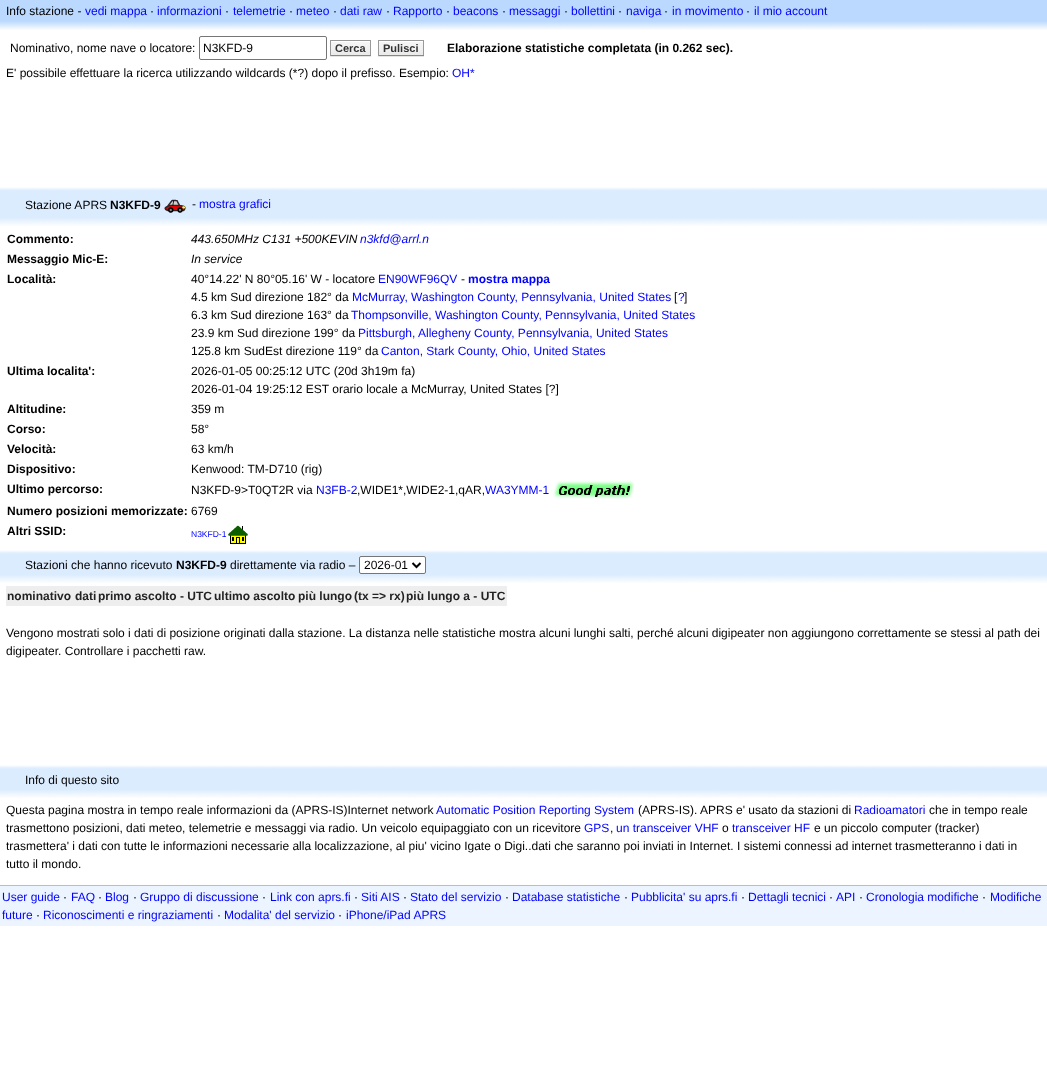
<svg xmlns="http://www.w3.org/2000/svg" width="1047" height="1078" viewBox="0 0 1047 1078">
  <style>
    .t1 { font: 12px Liberation Sans; fill: #000; }
    .t2 { font: 12px Liberation Sans; fill: #00f; }
    .t3 { font: bold 11px Liberation Sans; fill: #333; }
    .t4 { font: bold 12px Liberation Sans; fill: #000; }
    .t5 { font: italic 12px Liberation Sans; fill: #000; }
    .t6 { font: italic 12px Liberation Sans; fill: #00f; }
    .t7 { font: bold 12px Liberation Sans; fill: #00f; }
    .t8 { font: 8.5px Liberation Sans; fill: #00f; }
    .t9 { font: bold 12px Liberation Sans; fill: #222; }
  </style>
  <rect width="100%" height="100%" fill="#fff"/>
  <rect x="0" y="0" width="1047" height="20" fill="#bbd9ff"/>
  <text x="6" y="15" class="t1">Info stazione -</text>
  <text x="85" y="15" class="t2">vedi mappa</text>
  <text x="150" y="15" class="t1">·</text>
  <text x="157" y="15" class="t2">informazioni</text>
  <text x="225" y="15" class="t1">·</text>
  <text x="233" y="15" class="t2">telemetrie</text>
  <text x="289" y="15" class="t1">·</text>
  <text x="296" y="15" class="t2">meteo</text>
  <text x="333" y="15" class="t1">·</text>
  <text x="340" y="15" class="t2">dati raw</text>
  <text x="386" y="15" class="t1">·</text>
  <text x="393" y="15" class="t2">Rapporto</text>
  <text x="446" y="15" class="t1">·</text>
  <text x="453" y="15" class="t2">beacons</text>
  <text x="502" y="15" class="t1">·</text>
  <text x="509" y="15" class="t2">messaggi</text>
  <text x="564" y="15" class="t1">·</text>
  <text x="571" y="15" class="t2">bollettini</text>
  <text x="618" y="15" class="t1">·</text>
  <text x="626" y="15" class="t2">naviga</text>
  <text x="664" y="15" class="t1">·</text>
  <text x="672" y="15" class="t2">in movimento</text>
  <text x="746" y="15" class="t1">·</text>
  <text x="754" y="15" class="t2">il mio account</text>
  <image x="0" y="20" width="1047" height="10" href="images/1.png"/>
  <text x="10" y="52" class="t1">Nominativo, nome nave o locatore:</text>
  <rect x="199.5" y="36.5" width="127" height="23" rx="1.5" fill="none" stroke="#767676"/>
  <text x="203" y="52" class="t1">N3KFD-9</text>
  <rect x="330" y="56" width="41" height="1" fill="#e6e6e6"/>
  <image x="331" y="41" width="39" height="14" href="images/2.png"/>
  <rect x="330" y="40" width="41" height="1" fill="#999"/>
  <rect x="370" y="40" width="1" height="16" fill="#999"/>
  <rect x="330" y="55" width="41" height="1" fill="#888"/>
  <rect x="330" y="40" width="1" height="16" fill="#999"/>
  <text x="335" y="52" class="t3">Cerca</text>
  <rect x="378" y="56" width="46" height="1" fill="#e6e6e6"/>
  <image x="379" y="41" width="44" height="14" href="images/3.png"/>
  <rect x="378" y="40" width="46" height="1" fill="#999"/>
  <rect x="423" y="40" width="1" height="16" fill="#999"/>
  <rect x="378" y="55" width="46" height="1" fill="#888"/>
  <rect x="378" y="40" width="1" height="16" fill="#999"/>
  <text x="383" y="52" class="t3">Pulisci</text>
  <text x="447" y="52" class="t4">Elaborazione statistiche completata (in 0.262 sec).</text>
  <text x="6" y="77" class="t1">E' possibile effettuare la ricerca utilizzando wildcards (*?) dopo il prefisso. Esempio:</text>
  <text x="452" y="77" class="t2">OH*</text>
  <image x="0" y="187" width="1047" height="4" href="images/4.png"/>
  <rect x="0" y="191" width="1047" height="26" fill="#dcecff"/>
  <text x="25" y="209" class="t1">Stazione APRS</text>
  <text x="110" y="209" class="t4">N3KFD-9</text>
  <image x="164" y="199" width="22" height="14" href="images/5.png"/>
  <text x="192" y="208" class="t1">-</text>
  <text x="199" y="208" class="t2">mostra grafici</text>
  <image x="0" y="217" width="1047" height="9" href="images/6.png"/>
  <text x="7" y="243" class="t4">Commento:</text>
  <text x="191" y="243" class="t5">443.650MHz C131 +500KEVIN</text>
  <text x="360" y="243" class="t6">n3kfd@arrl.n</text>
  <text x="7" y="263" class="t4">Messaggio Mic-E:</text>
  <text x="191" y="263" class="t5">In service</text>
  <text x="7" y="283" class="t4">Località:</text>
  <text x="191" y="283" class="t1">40°14.22' N 80°05.16' W - locatore</text>
  <text x="378" y="283" class="t2">EN90WF96QV</text>
  <text x="461" y="283" class="t1">-</text>
  <text x="468" y="283" class="t7">mostra mappa</text>
  <text x="191" y="301" class="t1">4.5 km Sud direzione 182° da</text>
  <text x="352" y="301" class="t2">McMurray, Washington County, Pennsylvania, United States</text>
  <text x="674" y="301" class="t1">[</text>
  <text x="678" y="301" class="t2">?</text>
  <text x="684" y="301" class="t1">]</text>
  <text x="191" y="319" class="t1">6.3 km Sud direzione 163° da</text>
  <text x="351" y="319" class="t2">Thompsonville, Washington County, Pennsylvania, United States</text>
  <text x="191" y="337" class="t1">23.9 km Sud direzione 199° da</text>
  <text x="358" y="337" class="t2">Pittsburgh, Allegheny County, Pennsylvania, United States</text>
  <text x="191" y="355" class="t1">125.8 km SudEst direzione 119° da</text>
  <text x="381" y="355" class="t2">Canton, Stark County, Ohio, United States</text>
  <text x="7" y="375" class="t4">Ultima localita':</text>
  <text x="191" y="375" class="t1">2026-01-05 00:25:12 UTC (20d 3h19m fa)</text>
  <text x="191" y="393" class="t1">2026-01-04 19:25:12 EST orario locale a McMurray, United States [?]</text>
  <text x="7" y="413" class="t4">Altitudine:</text>
  <text x="191" y="413" class="t1">359 m</text>
  <text x="7" y="433" class="t4">Corso:</text>
  <text x="191" y="433" class="t1">58°</text>
  <text x="7" y="453" class="t4">Velocità:</text>
  <text x="191" y="453" class="t1">63 km/h</text>
  <text x="7" y="473" class="t4">Dispositivo:</text>
  <text x="191" y="473" class="t1">Kenwood: TM-D710 (rig)</text>
  <text x="7" y="493" class="t4">Ultimo percorso:</text>
  <text x="191" y="494" class="t1">N3KFD-9&gt;T0QT2R via</text>
  <text x="316" y="494" class="t2">N3FB-2</text>
  <text x="357" y="494" class="t1">,WIDE1*,WIDE2-1,qAR,</text>
  <text x="485" y="494" class="t2">WA3YMM-1</text>
  <image x="553" y="480" width="81" height="19" href="images/7.png"/>
  <text x="7" y="515" class="t4">Numero posizioni memorizzate:</text>
  <text x="191" y="515" class="t1">6769</text>
  <text x="7" y="535" class="t4">Altri SSID:</text>
  <text x="191" y="537" class="t8">N3KFD-1</text>
  <image x="228" y="525" width="20" height="19" href="images/8.png"/>
  <image x="0" y="550" width="1047" height="4" href="images/4.png"/>
  <rect x="0" y="554" width="1047" height="20" fill="#dcecff"/>
  <text x="25" y="569" class="t1">Stazioni che hanno ricevuto</text>
  <text x="176" y="569" class="t4">N3KFD-9</text>
  <text x="230" y="569" class="t1">direttamente via radio –</text>
  <rect x="359.5" y="556.5" width="66" height="17" rx="1.5" fill="#fff" stroke="#767676"/>
  <path d="M412.5 563L416.5 567L420.5 563" fill="none" stroke="#000" stroke-width="2"/>
  <text x="364" y="569" class="t1">2026-01</text>
  <image x="0" y="574" width="1047" height="9" href="images/6.png"/>
  <rect x="6" y="586" width="501" height="20" fill="#eee"/>
  <text x="7" y="600" class="t9">nominativo</text>
  <text x="75" y="600" class="t9">dati</text>
  <text x="98" y="600" class="t9">primo ascolto - UTC</text>
  <text x="214" y="600" class="t9">ultimo ascolto</text>
  <text x="298" y="600" class="t9">più lungo</text>
  <text x="354" y="600" class="t9">(tx =&gt; rx)</text>
  <text x="406" y="600" class="t9">più lungo a - UTC</text>
  <text x="6" y="637" class="t1">Vengono mostrati solo i dati di posizione originati dalla stazione. La distanza nelle statistiche mostra alcuni lunghi salti, perché alcuni digipeater non aggiungono correttamente se stessi al path dei</text>
  <text x="6" y="655" class="t1">digipeater. Controllare i pacchetti raw.</text>
  <image x="0" y="765" width="1047" height="4" href="images/4.png"/>
  <rect x="0" y="769" width="1047" height="20" fill="#dcecff"/>
  <text x="25" y="784" class="t1">Info di questo sito</text>
  <image x="0" y="789" width="1047" height="9" href="images/6.png"/>
  <text x="6" y="814" class="t1">Questa pagina mostra in tempo reale informazioni da (APRS-IS)Internet network</text>
  <text x="436" y="814" class="t2">Automatic Position Reporting System</text>
  <text x="638" y="814" class="t1">(APRS-IS). APRS e' usato da stazioni di</text>
  <text x="854" y="814" class="t2">Radioamatori</text>
  <text x="929" y="814" class="t1">che in tempo reale</text>
  <text x="6" y="832" class="t1">trasmettono posizioni, dati meteo, telemetrie e messaggi via radio. Un veicolo equipaggiato con un ricevitore</text>
  <text x="584" y="832" class="t2">GPS</text>
  <text x="610" y="832" class="t1">,</text>
  <text x="616" y="832" class="t2">un transceiver VHF</text>
  <text x="722" y="832" class="t1">o</text>
  <text x="732" y="832" class="t2">transceiver HF</text>
  <text x="814" y="832" class="t1">e un piccolo computer (tracker)</text>
  <text x="6" y="850" class="t1">trasmettera' i dati con tutte le informazioni necessarie alla localizzazione, al piu' vicino Igate o Digi..dati che saranno poi inviati in Internet. I sistemi connessi ad internet trasmetteranno i dati in</text>
  <text x="6" y="868" class="t1">tutto il mondo.</text>
  <rect x="0" y="886" width="1047" height="40" fill="#ebf4ff"/>
  <rect x="0" y="885" width="1047" height="1" fill="#bdbdbd"/>
  <text x="2" y="901" class="t2">User guide</text>
  <text x="63" y="901" class="t1">·</text>
  <text x="71" y="901" class="t2">FAQ</text>
  <text x="98" y="901" class="t1">·</text>
  <text x="105" y="901" class="t2">Blog</text>
  <text x="133" y="901" class="t1">·</text>
  <text x="140" y="901" class="t2">Gruppo di discussione</text>
  <text x="262" y="901" class="t1">·</text>
  <text x="270" y="901" class="t2">Link con aprs.fi</text>
  <text x="354" y="901" class="t1">·</text>
  <text x="361" y="901" class="t2">Siti AIS</text>
  <text x="403" y="901" class="t1">·</text>
  <text x="410" y="901" class="t2">Stato del servizio</text>
  <text x="505" y="901" class="t1">·</text>
  <text x="512" y="901" class="t2">Database statistiche</text>
  <text x="624" y="901" class="t1">·</text>
  <text x="631" y="901" class="t2">Pubblicita' su aprs.fi</text>
  <text x="741" y="901" class="t1">·</text>
  <text x="748" y="901" class="t2">Dettagli tecnici</text>
  <text x="829" y="901" class="t1">·</text>
  <text x="836" y="901" class="t2">API</text>
  <text x="859" y="901" class="t1">·</text>
  <text x="866" y="901" class="t2">Cronologia modifiche</text>
  <text x="982" y="901" class="t1">·</text>
  <text x="990" y="901" class="t2">Modifiche</text>
  <text x="2" y="919" class="t2">future</text>
  <text x="36" y="919" class="t1">·</text>
  <text x="43" y="919" class="t2">Riconoscimenti e ringraziamenti</text>
  <text x="217" y="919" class="t1">·</text>
  <text x="224" y="919" class="t2">Modalita' del servizio</text>
  <text x="338" y="919" class="t1">·</text>
  <text x="346" y="919" class="t2">iPhone/iPad APRS</text>
</svg>
